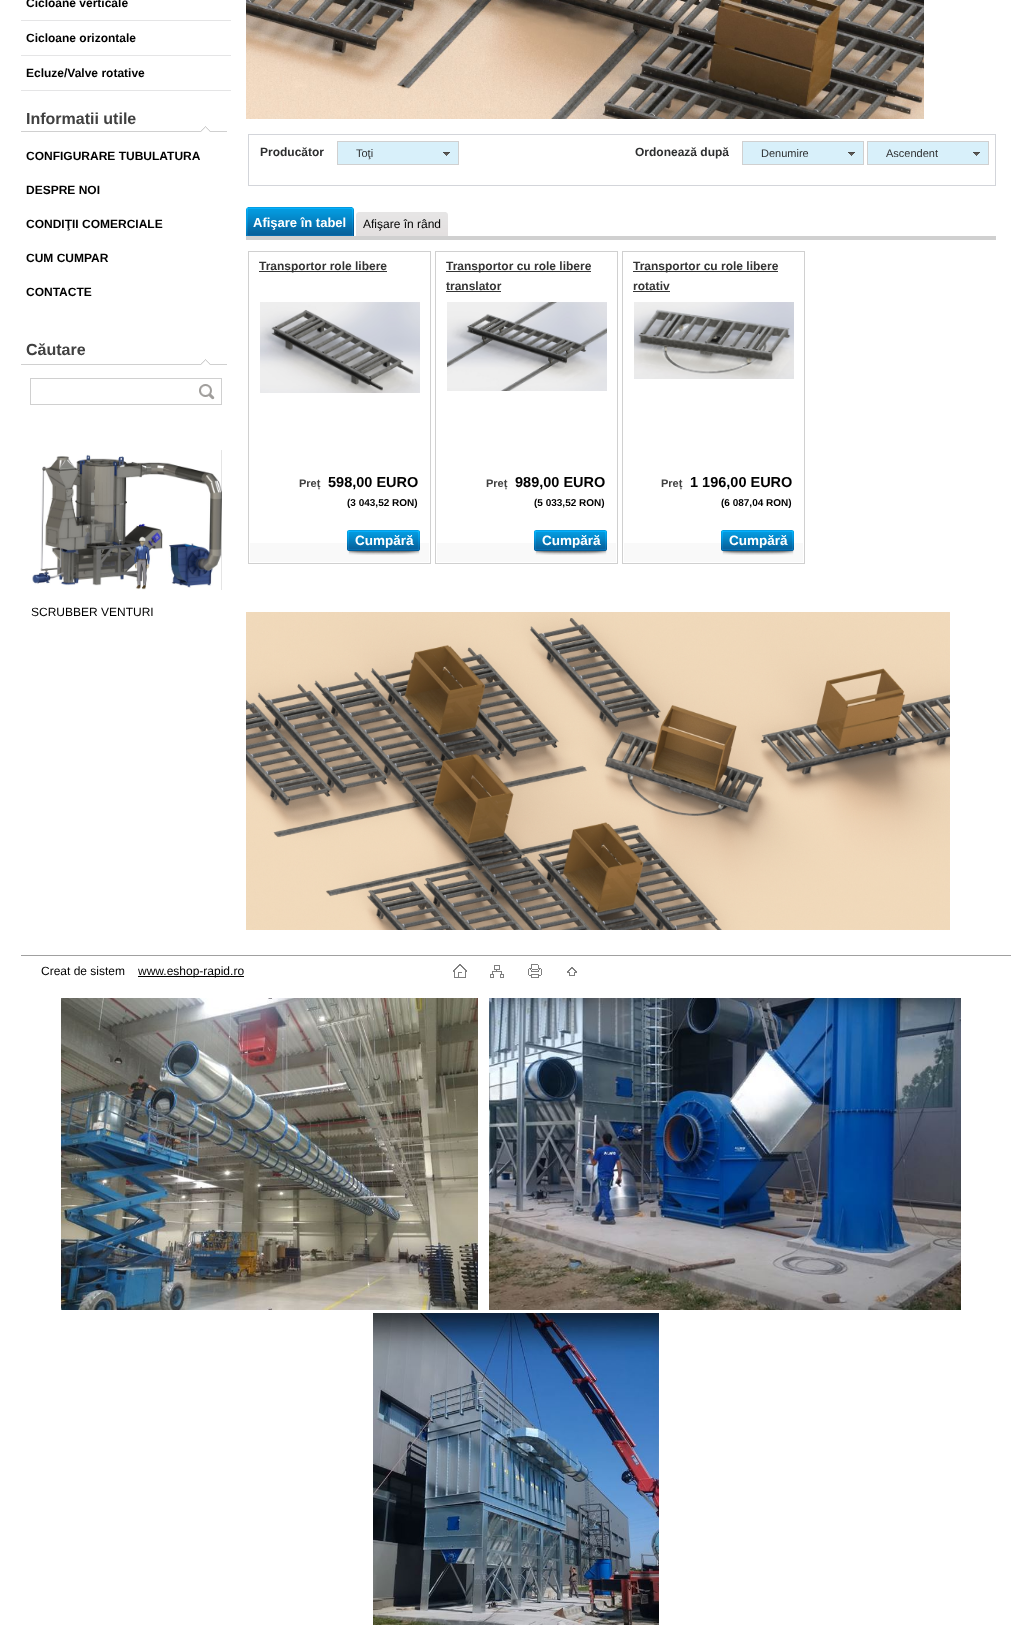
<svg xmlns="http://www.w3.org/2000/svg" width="1032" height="1628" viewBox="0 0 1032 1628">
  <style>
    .t1 { font: bold 12px Liberation Sans; fill: #000; }
    .t2 { font: bold 16px Liberation Sans; fill: #404040; }
    .t3 { font: 12px Liberation Sans; fill: #000; }
    .t4 { font: bold 12px Liberation Sans; fill: #2e2f30; }
    .t5 { font: 11px Liberation Sans; fill: #2e2f30; }
    .t6 { font: bold 13px Liberation Sans; fill: #fff; }
    .t7 { font: bold 12px Liberation Sans; fill: #343434; }
    .t8 { font: bold 11px Liberation Sans; fill: #404040; }
    .t9 { font: bold 14.5px Liberation Sans; fill: #000; }
    .t10 { font: bold 10px Liberation Sans; fill: #000; }
    .t11 { font: bold 13.5px Liberation Sans; fill: #fff; }
  </style>
  <rect width="100%" height="100%" fill="#fff"/>
  <rect x="21" y="20" width="210" height="1" fill="#e5e5e6"/>
  <text x="26" y="7" class="t1">Cicloane verticale</text>
  <rect x="21" y="55" width="210" height="1" fill="#e5e5e6"/>
  <text x="26" y="42" class="t1">Cicloane orizontale</text>
  <rect x="21" y="90" width="210" height="1" fill="#e5e5e6"/>
  <text x="26" y="77" class="t1">Ecluze/Valve rotative</text>
  <image x="21" y="126" width="206" height="6" href="images/1.png"/>
  <text x="26" y="124" class="t2">Informatii utile</text>
  <text x="26" y="160" class="t1">CONFIGURARE TUBULATURA</text>
  <text x="26" y="194" class="t1">DESPRE NOI</text>
  <text x="26" y="228" class="t1">CONDIŢII COMERCIALE</text>
  <text x="26" y="262" class="t1">CUM CUMPAR</text>
  <text x="26" y="296" class="t1">CONTACTE</text>
  <image x="21" y="359" width="206" height="6" href="images/1.png"/>
  <text x="26" y="355" class="t2">Căutare</text>
  <rect x="30.5" y="378.5" width="191" height="26" fill="none" stroke="#d0d0d0"/>
  <image x="199" y="384" width="16" height="16" href="images/2.png"/>
  <image x="32" y="450" width="190" height="140" href="images/3.png"/>
  <text x="31" y="616" class="t3">SCRUBBER VENTURI</text>
  <image x="246" y="0" width="678" height="119" href="images/4.png"/>
  <rect x="248.5" y="134.5" width="747" height="51" fill="none" stroke="#d3d5da"/>
  <text x="260" y="156" class="t4">Producător</text>
  <rect x="337.5" y="141.5" width="121" height="23" fill="#d8f0fa" stroke="#d0d0d0"/>
  <text x="356" y="157" class="t5">Toţi</text>
  <image x="443" y="152" width="7" height="4" href="images/5.png"/>
  <text x="635" y="156" class="t4">Ordonează după</text>
  <rect x="742.5" y="141.5" width="121" height="23" fill="#d8f0fa" stroke="#d0d0d0"/>
  <text x="761" y="157" class="t5">Denumire</text>
  <image x="848" y="152" width="7" height="4" href="images/5.png"/>
  <rect x="867.5" y="141.5" width="121" height="23" fill="#d8f0fa" stroke="#d0d0d0"/>
  <text x="886" y="157" class="t5">Ascendent</text>
  <image x="973" y="152" width="7" height="4" href="images/5.png"/>
  <image x="246" y="207" width="106" height="29" href="images/6.png"/>
  <image x="248" y="207" width="106" height="29" href="images/7.png"/>
  <text x="253" y="227" class="t6">Afişare în tabel</text>
  <image x="356" y="212" width="90" height="24" href="images/8.png"/>
  <image x="446" y="212" width="2" height="24" href="images/9.png"/>
  <text x="363" y="228" class="t3">Afişare în rând</text>
  <rect x="246" y="236" width="750" height="4" fill="#d0d0d0"/>
  <rect x="250" y="543" width="179" height="19" fill="#f9f9f9"/>
  <rect x="248.5" y="251.5" width="182" height="312" fill="none" stroke="#d0d0d0"/>
  <rect x="259" y="271" width="128" height="1" fill="#343434"/>
  <text x="259" y="270" class="t7">Transportor role libere</text>
  <image x="260" y="302" width="160" height="91" href="images/10.png"/>
  <text x="299" y="487" class="t8">Preț</text>
  <text x="328" y="487" class="t9">598,00 EURO</text>
  <text x="347" y="506" class="t10">(3 043,52 RON)</text>
  <image x="347" y="530" width="73" height="25" href="images/11.png"/>
  <text x="355" y="545" class="t11">Cumpără</text>
  <rect x="437" y="543" width="179" height="19" fill="#f9f9f9"/>
  <rect x="435.5" y="251.5" width="182" height="312" fill="none" stroke="#d0d0d0"/>
  <rect x="446" y="271" width="145" height="1" fill="#343434"/>
  <text x="446" y="270" class="t7">Transportor cu role libere</text>
  <text x="446" y="290" class="t7">translator</text>
  <rect x="446" y="291" width="55" height="1" fill="#343434"/>
  <image x="447" y="302" width="160" height="89" href="images/12.png"/>
  <text x="486" y="487" class="t8">Preț</text>
  <text x="515" y="487" class="t9">989,00 EURO</text>
  <text x="534" y="506" class="t10">(5 033,52 RON)</text>
  <image x="534" y="530" width="73" height="25" href="images/11.png"/>
  <text x="542" y="545" class="t11">Cumpără</text>
  <rect x="624" y="543" width="179" height="19" fill="#f9f9f9"/>
  <rect x="622.5" y="251.5" width="182" height="312" fill="none" stroke="#d0d0d0"/>
  <rect x="633" y="271" width="145" height="1" fill="#343434"/>
  <text x="633" y="270" class="t7">Transportor cu role libere</text>
  <text x="633" y="290" class="t7">rotativ</text>
  <rect x="633" y="291" width="37" height="1" fill="#343434"/>
  <image x="634" y="302" width="160" height="77" href="images/13.png"/>
  <text x="661" y="487" class="t8">Preț</text>
  <text x="690" y="487" class="t9">1 196,00 EURO</text>
  <text x="721" y="506" class="t10">(6 087,04 RON)</text>
  <image x="721" y="530" width="73" height="25" href="images/11.png"/>
  <text x="729" y="545" class="t11">Cumpără</text>
  <image x="246" y="612" width="704" height="318" href="images/14.png"/>
  <rect x="21" y="955" width="990" height="1" fill="#a0a0a0"/>
  <text x="41" y="975" class="t3">Creat de sistem</text>
  <rect x="138" y="976" width="106" height="1" fill="#000"/>
  <text x="138" y="975" class="t3">www.eshop-rapid.ro</text>
  <image x="453" y="964" width="14" height="14" href="images/15.png"/>
  <image x="490" y="965" width="14" height="13" href="images/16.png"/>
  <image x="528" y="964" width="14" height="14" href="images/17.png"/>
  <image x="567" y="967" width="10" height="9" href="images/18.png"/>
  <image x="61" y="998" width="417" height="312" href="images/19.png"/>
  <image x="489" y="998" width="472" height="312" href="images/20.png"/>
  <image x="373" y="1313" width="286" height="312" href="images/21.png"/>
</svg>
